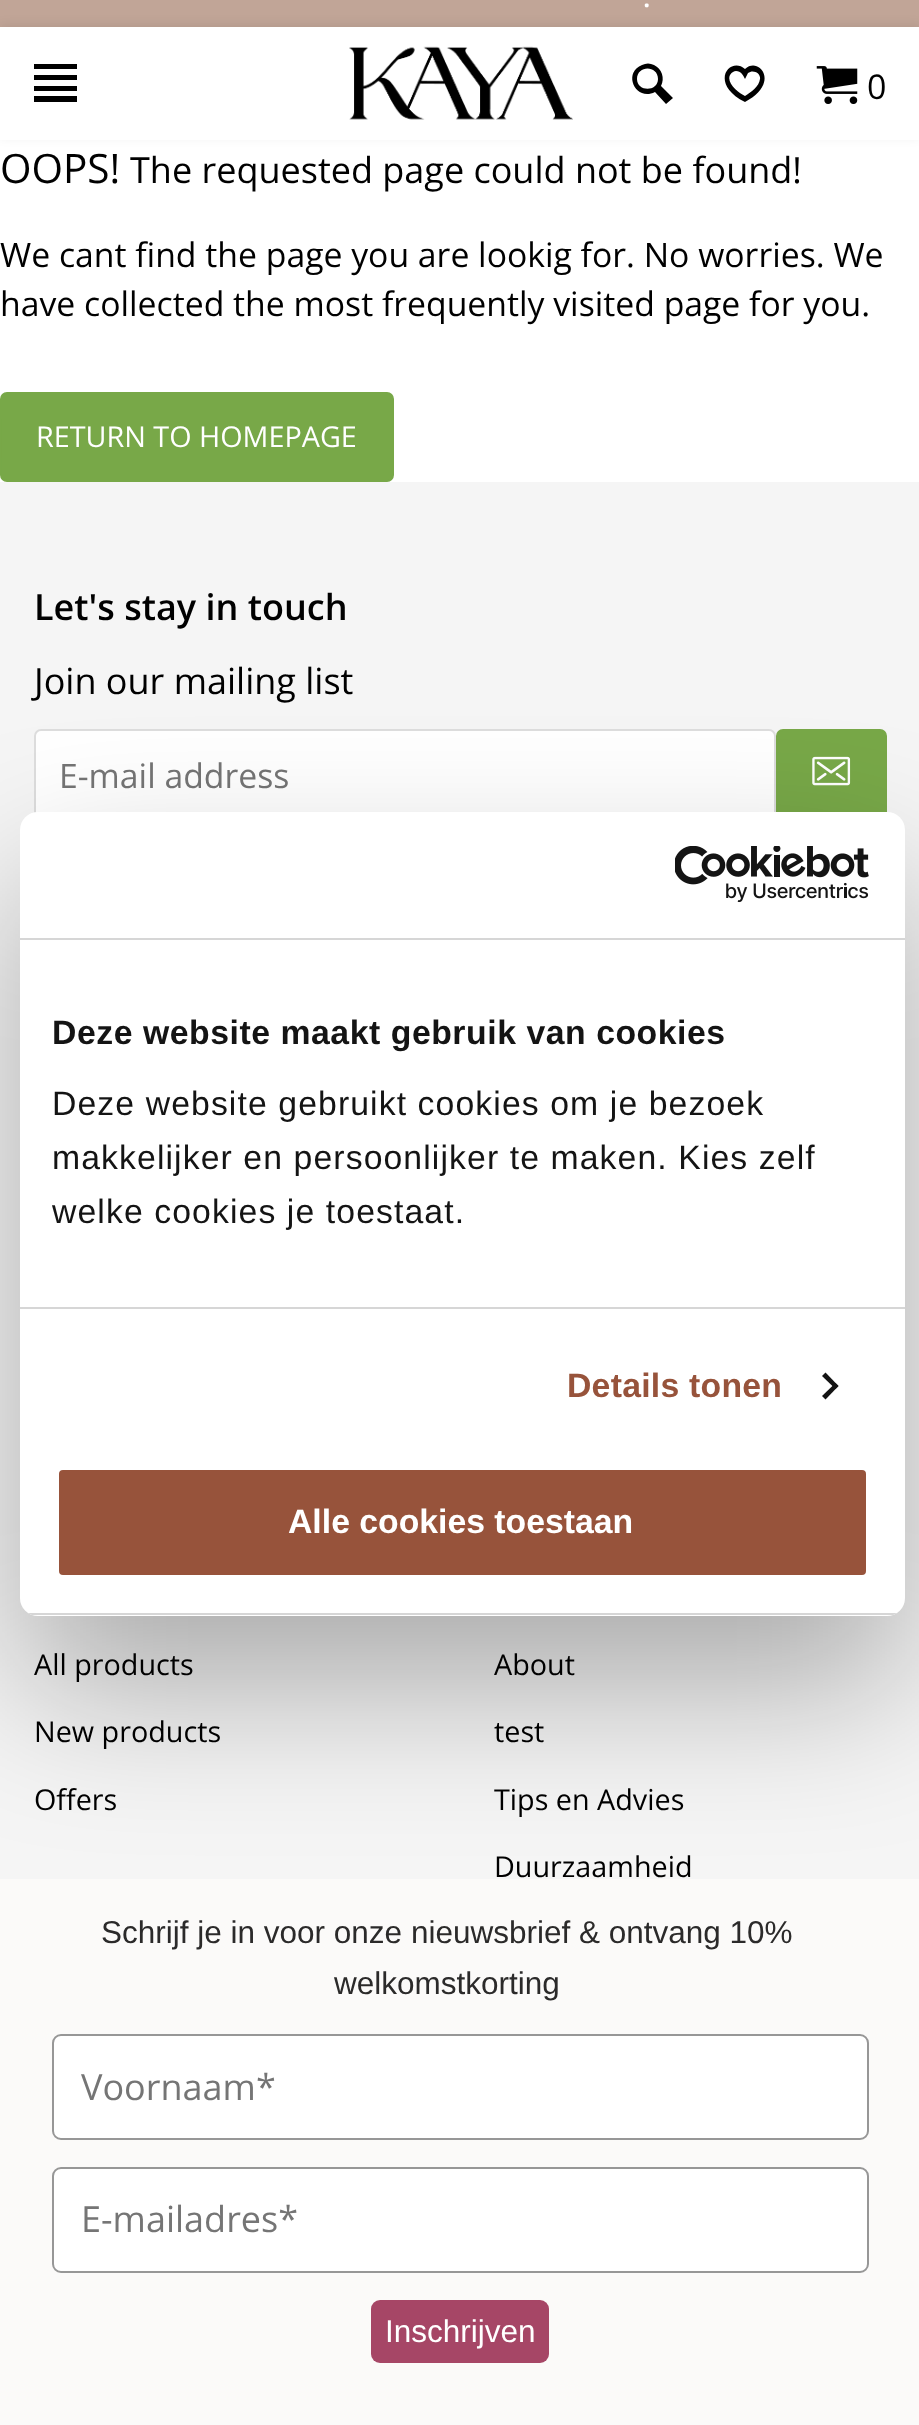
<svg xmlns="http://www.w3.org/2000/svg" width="919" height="2425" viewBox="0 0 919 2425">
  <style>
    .t1 { font: 600 27px Open Sans; fill: #fff; }
    .t2 { font: 34px Open Sans; fill: #000; }
    .t3 { font: 40.5px Open Sans; fill: #000; }
    .t4 { font: 36px Open Sans; fill: #000; }
    .t5 { font: 33.75px Open Sans; fill: #000; }
    .t6 { font: 28.75px Open Sans; fill: #fff; }
    .t7 { font: 600 36px Open Sans; fill: #000; }
    .t8 { font: 33.75px Open Sans; fill: #757575; }
    .t9 { font: 28.75px Open Sans; fill: #000; }
    .t10 { font: bold 33.75px Liberation Sans; letter-spacing: 0.55px; fill: #141414; }
    .t11 { font: 33.75px Liberation Sans; letter-spacing: 1.1px; fill: #141414; }
    .t12 { font: bold 33.75px Liberation Sans; letter-spacing: 0.25px; fill: #97533b; }
    .t13 { font: bold 33.75px Liberation Sans; fill: #fff; }
    .t14 { font: 31.5px Liberation Sans; fill: #2b2a2a; }
    .t15 { font: 36px Open Sans; fill: #757575; }
    .t16 { font: 31.5px Liberation Sans; fill: #fff; }
  </style>
  <defs>
    <clipPath id="clip1"><rect x="20" y="812" width="885" height="804" rx="18"/></clipPath>
  </defs>
  <rect width="100%" height="100%" fill="#fff"/>
  <rect x="0" y="0" width="919" height="27" fill="#c1a597"/>
  <text x="643" y="7" class="t1">.</text>
  <rect x="0" y="25" width="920" height="112" fill="#00000014" filter="blur(5.5px)"/>
  <rect x="0" y="27" width="919" height="113" fill="#fff"/>
  <path d="M34 64H77V69H34ZM34 86H77V91H34ZM34 75H77V80H34ZM34 96H77V102H34Z" fill="#000"/>
  <image x="349" y="46" width="224" height="74" href="images/1.png"/>
  <path d="M673 98L661 86C665 78 662 69 654 65C650 63 646 63 642 65C622 73 636 102 655 92L666 104ZM637 79C637 65 658 65 658 79C658 92 637 92 637 79Z" fill="#000"/>
  <path d="M745 102C708 83 730 56 745 69C759 56 781 83 745 102ZM736 71C734 71 732 72 730 75C726 83 739 93 745 96C751 92 759 87 760 79C761 73 753 69 748 73L745 79C743 75 741 71 736 71Z" fill="#000"/>
  <image x="816" y="66" width="42" height="38" href="images/2.png"/>
  <text x="867" y="99" class="t2">0</text>
  <text x="0" y="183" class="t3">OOPS!</text>
  <text x="130" y="183" class="t4">The requested page could not be found!</text>
  <text x="0" y="267" class="t5">We cant find the page you are lookig for. No worries. We</text>
  <text x="0" y="316" class="t5">have collected the most frequently visited page for you.</text>
  <rect x="1" y="393" width="392" height="88" rx="6" fill="#78a848" stroke="#78a848" stroke-width="2"/>
  <text x="36" y="447" class="t6">RETURN TO HOMEPAGE</text>
  <rect x="0" y="482" width="919" height="1397" fill="#f5f5f5"/>
  <text x="34" y="620" class="t7">Let's stay in touch</text>
  <text x="34" y="694" class="t4">Join our mailing list</text>
  <rect x="35" y="730" width="740" height="88" rx="6" fill="#fff" stroke="#ddd" stroke-width="2"/>
  <text x="59" y="788" class="t8">E-mail address</text>
  <rect x="777" y="730" width="109" height="88" rx="6" fill="#78a848" stroke="#78a848" stroke-width="2"/>
  <image x="812" y="756" width="39" height="30" href="images/3.png"/>
  <text x="34" y="1675" class="t9">All products</text>
  <text x="34" y="1742" class="t9">New products</text>
  <text x="34" y="1810" class="t9">Offers</text>
  <text x="494" y="1675" class="t9">About</text>
  <text x="494" y="1742" class="t9">test</text>
  <text x="494" y="1810" class="t9">Tips en Advies</text>
  <text x="494" y="1877" class="t9">Duurzaamheid</text>
  <rect x="0" y="1879" width="919" height="546" fill="#fbfaf9"/>
  <rect x="20" y="884" width="885" height="804" rx="18" fill="#0000004d" filter="blur(76.5px)"/>
  <rect x="20" y="812" width="885" height="804" rx="18" fill="#fff"/>
  <rect x="20" y="938" width="885" height="2" fill="#d6d6d6"/>
  <image x="675" y="846" width="194" height="57" href="images/4.png"/>
  <rect x="20" y="1307" width="885" height="2" fill="#d6d6d6"/>
  <text x="52" y="1044" class="t10">Deze website maakt gebruik van cookies</text>
  <text x="52" y="1115" class="t11">Deze website gebruikt cookies om je bezoek</text>
  <text x="52" y="1169" class="t11">makkelijker en persoonlijker te maken. Kies zelf</text>
  <text x="52" y="1223" class="t11">welke cookies je toestaat.</text>
  <text x="567" y="1397" class="t12">Details tonen</text>
  <path d="M825.5 1372.5L838.5 1386L835.5 1389L822 1376Z" fill="#141414"/>
  <path d="M835.5 1383L838.5 1386L825.5 1399.5L822 1396Z" fill="#141414"/>
  <g clip-path="url(#clip1)">
    <rect x="20" y="1613" width="885" height="2" fill="#d6d6d6"/>
  </g>
  <rect x="56.5" y="1467.5" width="812" height="110" rx="6.5" fill="#97533b" stroke="#fff" stroke-width="5"/>
  <text x="288" y="1533" class="t13">Alle cookies toestaan</text>
  <text x="101" y="1943" class="t14">Schrijf je in voor onze nieuwsbrief &amp; ontvang 10%</text>
  <text x="334" y="1994" class="t14">welkomstkorting</text>
  <rect x="53" y="2035" width="815" height="104" rx="8" fill="#fff" stroke="#979797" stroke-width="2"/>
  <text x="81" y="2100" class="t15">Voornaam*</text>
  <rect x="53" y="2168" width="815" height="104" rx="8" fill="#fff" stroke="#979797" stroke-width="2"/>
  <text x="81" y="2232" class="t15">E-mailadres*</text>
  <rect x="371" y="2300" width="178" height="63" rx="9" fill="#a64666"/>
  <text x="385" y="2342" class="t16">Inschrijven</text>
</svg>
